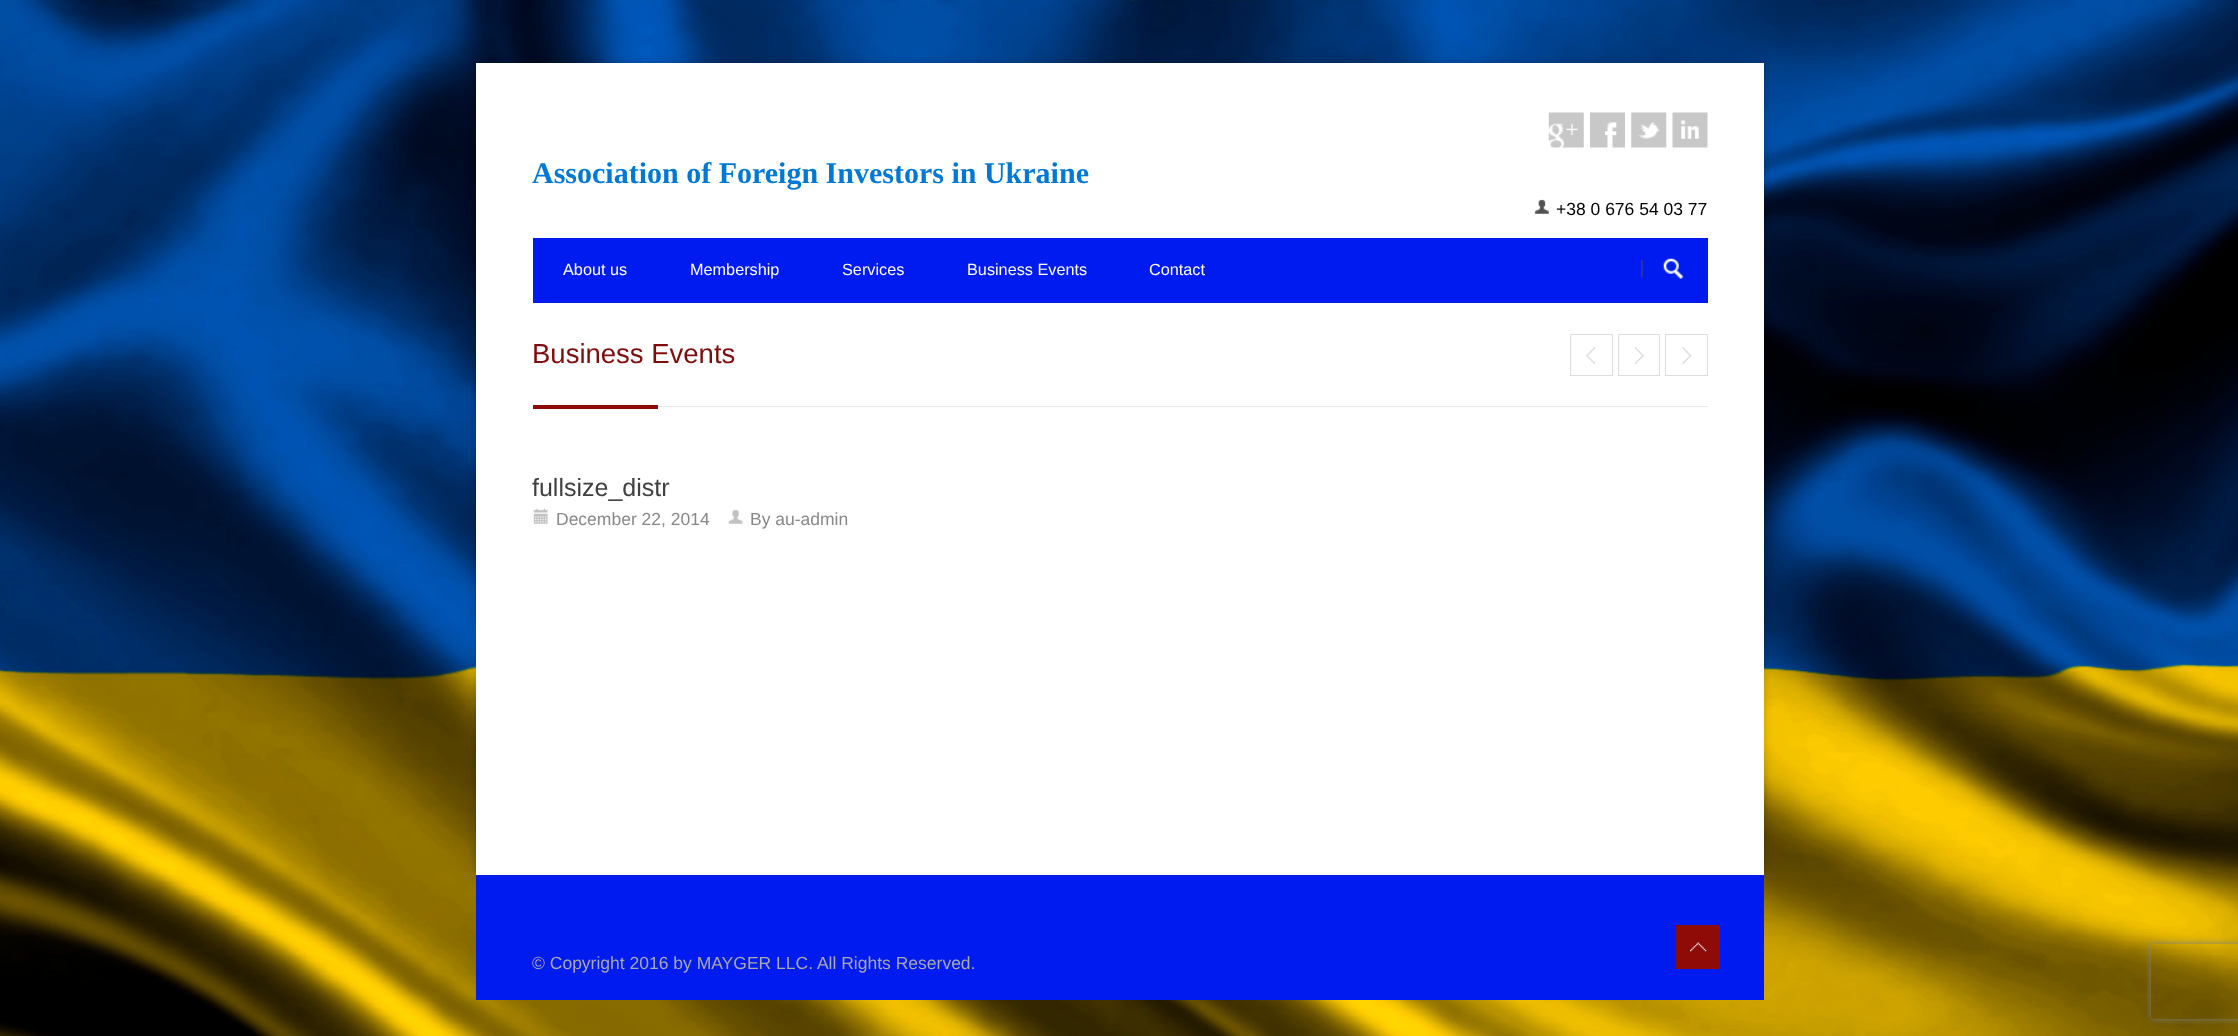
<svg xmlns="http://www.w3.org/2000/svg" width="2238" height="1036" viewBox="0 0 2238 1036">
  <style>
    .t1 { font: bold 30px Liberation Serif; fill: #0079d6; }
    .t2 { font: 17.5px Liberation Sans; fill: #000; }
    .t3 { font: 16.25px Liberation Sans; fill: #fff; }
    .t4 { font: 27.5px Liberation Sans; fill: #7f0c0c; }
    .t5 { font: 25px Liberation Sans; fill: #404040; }
    .t6 { font: 17.5px Liberation Sans; fill: #888; }
    .t7 { font: 17.5px Liberation Sans; fill: #aaa; }
  </style>
  <defs>
    <clipPath id="clip1"><path d="M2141 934H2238V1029H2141ZM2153.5 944H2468.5C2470 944 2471 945 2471 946.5V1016.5C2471 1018 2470 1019 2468.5 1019H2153.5C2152 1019 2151 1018 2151 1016.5V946.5C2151 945 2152 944 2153.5 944Z" clip-rule="evenodd"/></clipPath>
  </defs>
  <rect width="100%" height="100%" fill="#fff"/>
  <image x="0" y="0" width="2238" height="1036" href="images/1.png"/>
  <rect x="476" y="63" width="1288" height="812" fill="#00000033" filter="blur(4px)"/>
  <rect x="476" y="63" width="1288" height="812" fill="#fff"/>
  <text x="532" y="183" class="t1">Association of Foreign Investors in Ukraine</text>
  <image x="1548" y="112" width="36" height="36" href="images/2.png"/>
  <image x="1590" y="112" width="35" height="36" href="images/3.png"/>
  <image x="1631" y="112" width="36" height="36" href="images/4.png"/>
  <image x="1672" y="112" width="36" height="36" href="images/5.png"/>
  <image x="1534" y="199" width="15" height="15" href="images/6.png"/>
  <text x="1556" y="215" class="t2">+38 0 676 54 03 77</text>
  <rect x="533" y="238" width="1175" height="65" fill="#001bef"/>
  <text x="563" y="275" class="t3">About us</text>
  <text x="690" y="275" class="t3">Membership</text>
  <text x="842" y="275" class="t3">Services</text>
  <text x="967" y="275" class="t3">Business Events</text>
  <text x="1149" y="275" class="t3">Contact</text>
  <image x="1641" y="258" width="43" height="21" href="images/7.png"/>
  <rect x="658" y="406" width="1050" height="1" fill="#e9e9e9"/>
  <text x="532" y="363" class="t4">Business Events</text>
  <image x="1586" y="347" width="9" height="17" href="images/8.png"/>
  <rect x="1570.5" y="334.5" width="42" height="41" fill="none" stroke="#ddd"/>
  <image x="1635" y="347" width="9" height="17" href="images/9.png"/>
  <rect x="1618.5" y="334.5" width="41" height="41" fill="none" stroke="#ddd"/>
  <image x="1682" y="347" width="10" height="17" href="images/10.png"/>
  <rect x="1665.5" y="334.5" width="42" height="41" fill="none" stroke="#ddd"/>
  <rect x="533" y="405" width="125" height="4" fill="#8e0b07"/>
  <text x="532" y="496" class="t5">fullsize_distr</text>
  <image x="533" y="508" width="15" height="16" href="images/11.png"/>
  <text x="556" y="525" class="t6">December 22, 2014</text>
  <image x="728" y="510" width="15" height="14" href="images/12.png"/>
  <text x="750" y="525" class="t6">By au-admin</text>
  <rect x="476" y="875" width="1288" height="125" fill="#001bef"/>
  <text x="532" y="969" class="t7">© Copyright 2016 by MAYGER LLC. All Rights Reserved.</text>
  <rect x="1676" y="925" width="44" height="44" fill="#8e0b07"/>
  <image x="1690" y="942" width="17" height="10" href="images/13.png"/>
  <g clip-path="url(#clip1)">
    <rect x="2151" y="944" width="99" height="75" rx="2.5" fill="#808080" filter="blur(3px)"/>
  </g>
</svg>
